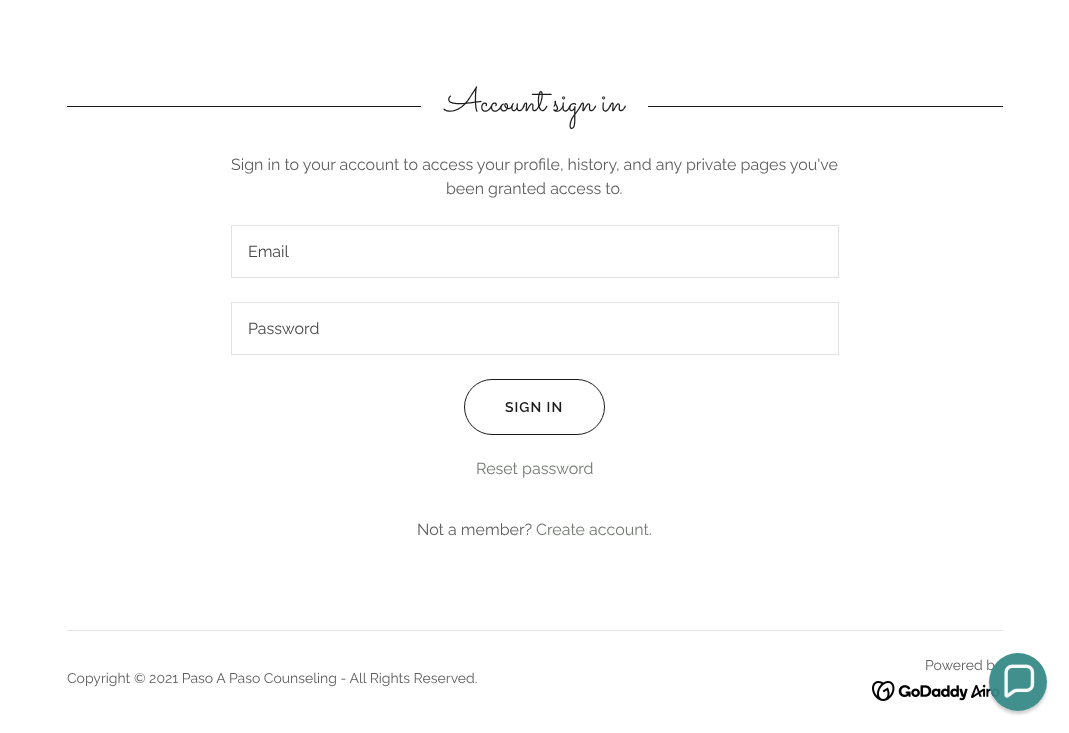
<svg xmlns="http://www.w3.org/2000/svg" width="1069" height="733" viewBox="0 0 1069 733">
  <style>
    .t1 { font: 34px Sacramento; fill: #1b1b1b; }
    .t2 { font: 16px Raleway; fill: #5e5e5e; }
    .t3 { font: 16px Raleway; fill: #474747; }
    .t4 { font: 600 14px Raleway; letter-spacing: 1px; fill: #1b1b1b; }
    .t5 { font: 16px Raleway; fill: #737871; }
    .t6 { font: 14px Raleway; fill: #5e5e5e; }
  </style>
  <defs>
    <clipPath id="clip1"><path d="M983 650H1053V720H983ZM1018 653C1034 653 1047 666 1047 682C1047 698 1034 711 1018 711C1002 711 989 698 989 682C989 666 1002 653 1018 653Z" clip-rule="evenodd"/></clipPath>
  </defs>
  <rect width="100%" height="100%" fill="#fff"/>
  <rect x="67" y="106" width="354" height="1" fill="#1b1b1b"/>
  <text x="445" y="111" class="t1">Account sign in</text>
  <rect x="648" y="106" width="355" height="1" fill="#1b1b1b"/>
  <text x="231" y="170" class="t2">Sign in to your account to access your profile, history, and any private pages you've</text>
  <text x="446" y="194" class="t2">been granted access to.</text>
  <rect x="231.5" y="225.5" width="607" height="52" fill="none" stroke="#e2e2e2"/>
  <text x="248" y="257" class="t3">Email</text>
  <rect x="231.5" y="302.5" width="607" height="52" fill="none" stroke="#e2e2e2"/>
  <text x="248" y="334" class="t3">Password</text>
  <rect x="464.5" y="379.5" width="140" height="55" rx="27.5" fill="none" stroke="#1b1b1b"/>
  <text x="505" y="412" class="t4">SIGN IN</text>
  <text x="476" y="474" class="t5">Reset password</text>
  <text x="417" y="535" class="t2">Not a member?</text>
  <text x="536" y="535" class="t5">Create account.</text>
  <rect x="67" y="630" width="936" height="1" fill="#e2e2e2"/>
  <text x="925" y="670" class="t6">Powered b</text>
  <image x="872" y="681" width="130" height="20" href="images/1.png"/>
  <text x="67" y="683" class="t6">Copyright © 2021 Paso A Paso Counseling - All Rights Reserved.</text>
  <g clip-path="url(#clip1)">
    <rect x="989" y="656" width="58" height="58" rx="29" fill="#00000030" filter="blur(1.5px)"/>
  </g>
  <circle cx="1018" cy="682" r="29" fill="#378a88f2"/>
  <image x="1004" y="664" width="31" height="34" href="images/2.png"/>
</svg>
